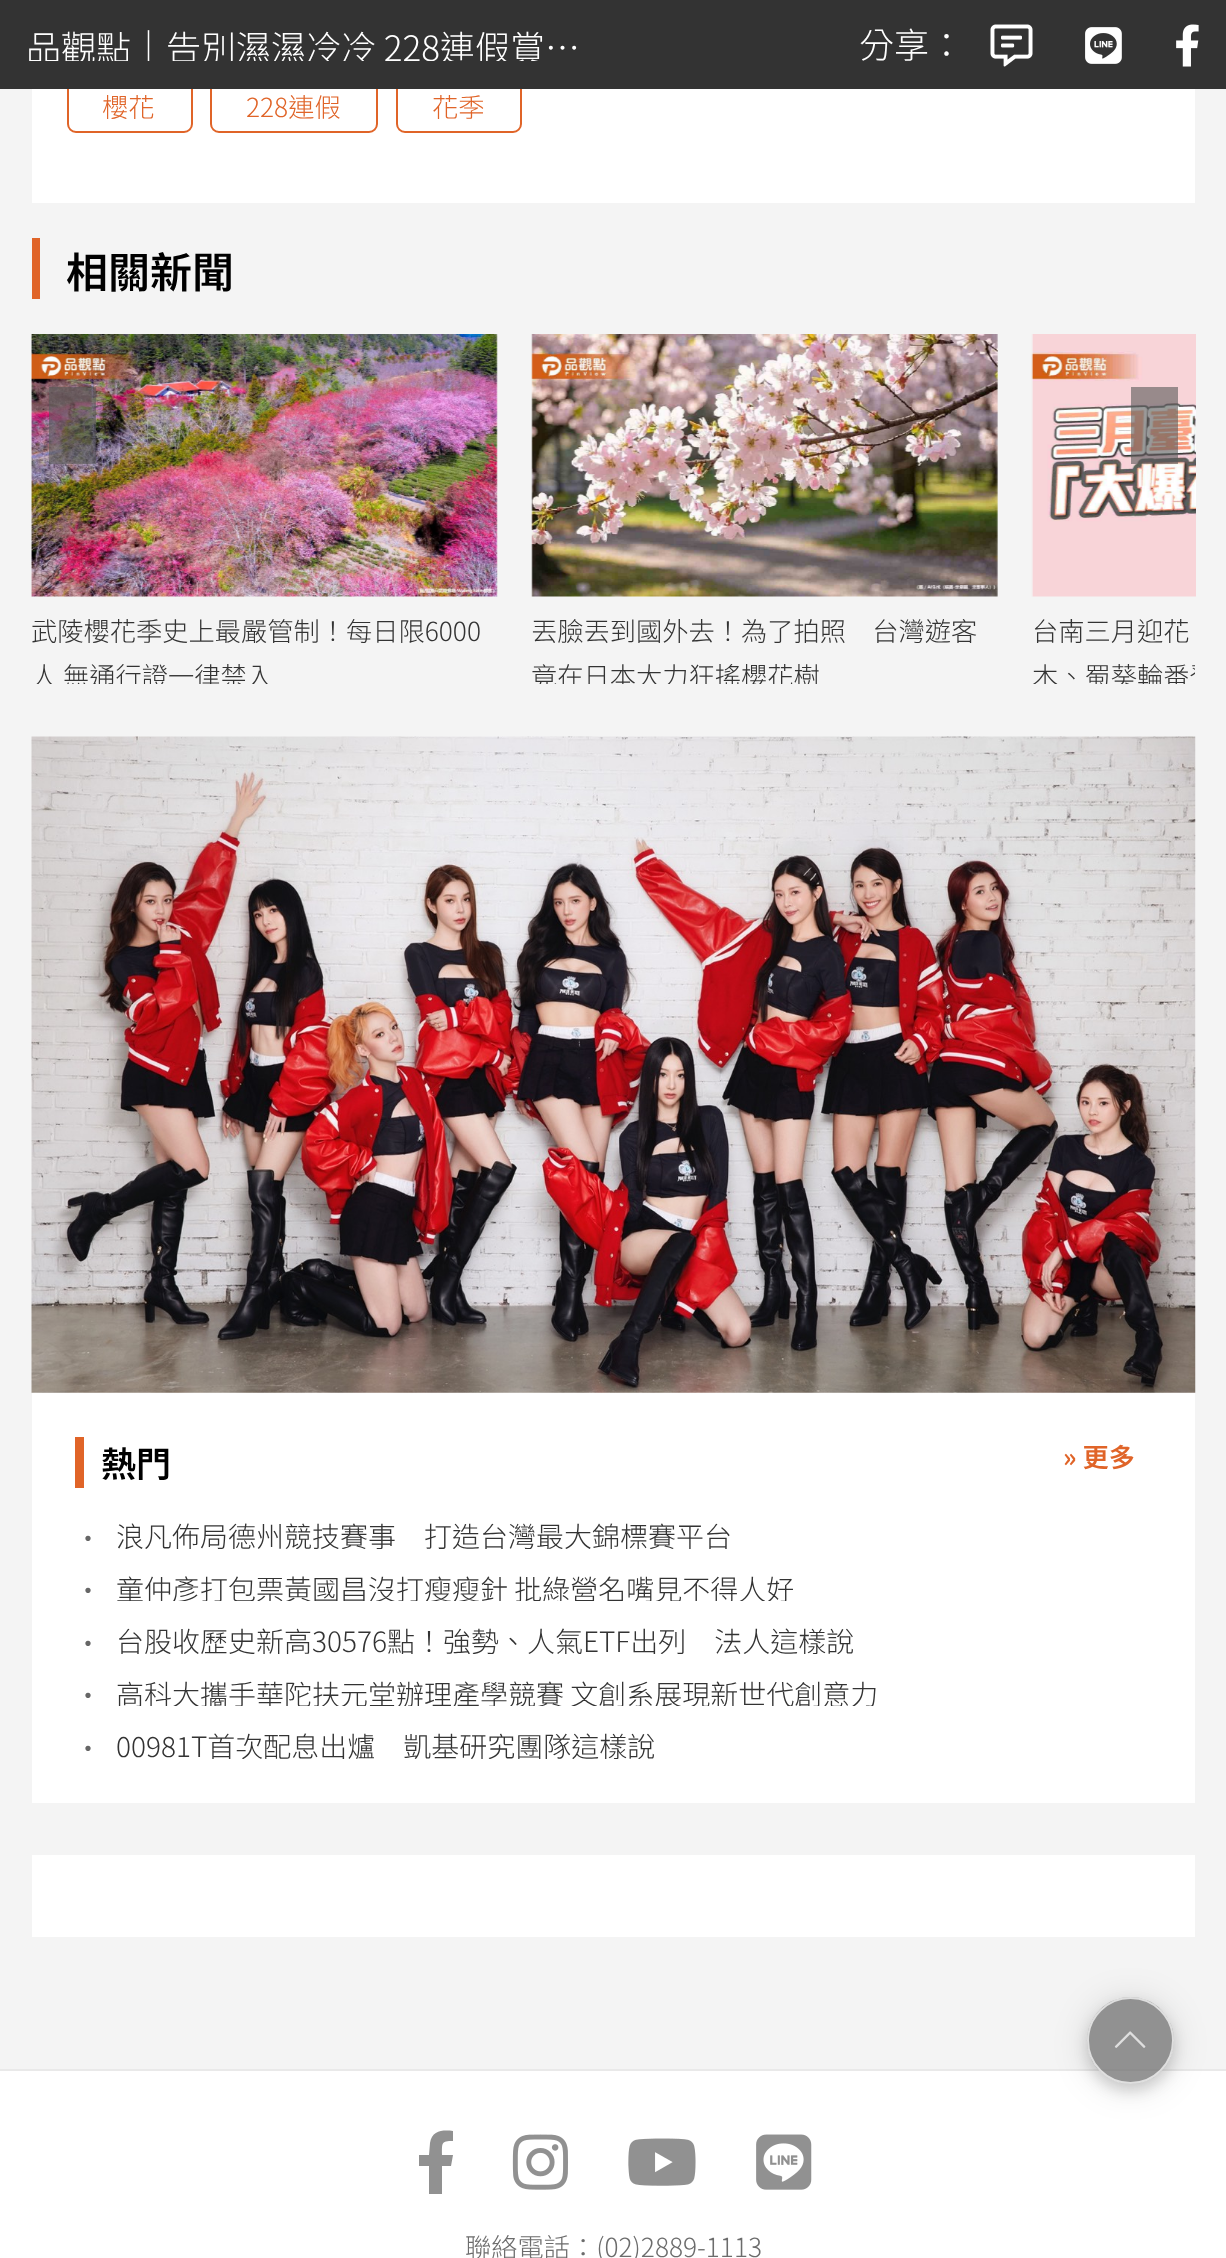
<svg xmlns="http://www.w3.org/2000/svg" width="1226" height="2258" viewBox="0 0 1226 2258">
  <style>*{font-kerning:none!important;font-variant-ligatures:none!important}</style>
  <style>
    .t1 { font: 300 35px Noto Sans TC; fill: #fff; }
    .t2 { font: 300 26.25px Noto Sans TC; fill: #e06428; }
    .t3 { font: 600 42px Noto Sans TC; fill: #000; }
    .t4 { font: 300 26.25px Noto Sans TC; fill: #333; }
    .t5 { font: 600 35px Noto Sans TC; fill: #000; }
    .t6 { font: 600 26.25px Noto Sans TC; fill: #e06428; }
    .t7 { font: 300 28px Noto Sans TC; fill: #666; }
    .t8 { font: 300 28px Noto Sans TC; fill: #333; }
    .t9 { font: 300 26.25px Noto Sans TC; fill: #6c6c6c; }
  </style>
  <defs>
    <clipPath id="clip1"><rect x="0" y="0" width="614" height="61"/></clipPath>
    <clipPath id="clip2"><rect x="32" y="334" width="1163" height="350"/></clipPath>
    <clipPath id="clip3"><rect x="117" y="1523" width="616" height="26"/></clipPath>
    <clipPath id="clip4"><rect x="117" y="1575" width="678" height="26"/></clipPath>
    <clipPath id="clip5"><rect x="117" y="1628" width="737" height="26"/></clipPath>
    <clipPath id="clip6"><rect x="117" y="1680" width="762" height="26"/></clipPath>
    <clipPath id="clip7"><rect x="117" y="1733" width="539" height="26"/></clipPath>
    <clipPath id="clip8"><path d="M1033 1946H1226V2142H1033ZM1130.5 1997C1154.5 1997 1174 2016.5 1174 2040.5C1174 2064.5 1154.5 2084 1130.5 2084C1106.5 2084 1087 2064.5 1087 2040.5C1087 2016.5 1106.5 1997 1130.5 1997Z" clip-rule="evenodd"/></clipPath>
    <clipPath id="clip9"><path d="M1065 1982H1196V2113H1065ZM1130.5 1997C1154.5 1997 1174 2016.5 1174 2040.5C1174 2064.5 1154.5 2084 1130.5 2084C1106.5 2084 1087 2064.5 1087 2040.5C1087 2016.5 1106.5 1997 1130.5 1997Z" clip-rule="evenodd"/></clipPath>
  </defs>
  <rect width="100%" height="100%" fill="#f4f4f4"/>
  <rect x="32" y="89" width="1163" height="114" fill="#fff"/>
  <rect x="68" y="80" width="124" height="52" rx="8" fill="none" stroke="#e06428" stroke-width="2"/>
  <rect x="211" y="80" width="166" height="52" rx="8" fill="none" stroke="#e06428" stroke-width="2"/>
  <rect x="397" y="80" width="124" height="52" rx="8" fill="none" stroke="#e06428" stroke-width="2"/>
  <rect x="0" y="0" width="1226" height="89" fill="#333"/>
  <g clip-path="url(#clip1)">
    <text x="26" y="61" class="t1">品觀點│告別濕濕冷冷 228連假賞…</text>
  </g>
  <text x="859" y="58" class="t1">分享：</text>
  <image x="990" y="24" width="43" height="43" href="images/1.png"/>
  <image x="1085" y="27" width="37" height="37" href="images/2.png"/>
  <image x="1176" y="24" width="23" height="43" href="images/3.png"/>
  <text x="102" y="117" class="t2">櫻花</text>
  <text x="246" y="117" class="t2">228連假</text>
  <text x="432" y="117" class="t2">花季</text>
  <rect x="32" y="238" width="8" height="61" fill="#e06428"/>
  <text x="66" y="288" class="t3">相關新聞</text>
  <image x="31" y="334" width="467" height="263" href="images/4.png"/>
  <rect x="49" y="387" width="47" height="77" fill="#58585899"/>
  <image x="1031" y="334" width="165" height="263" href="images/6.png"/>
  <rect x="1131" y="387" width="47" height="77" fill="#58585899"/>
  <text x="31" y="641" class="t4">武陵櫻花季史上最嚴管制！每日限6000</text>
  <g clip-path="url(#clip2)">
    <text x="31" y="686" class="t4">人 無通行證一律禁入</text>
  </g>
  <image x="531" y="334" width="467" height="263" href="images/5.png"/>
  <text x="531" y="641" class="t4">丟臉丟到國外去！為了拍照　台灣遊客</text>
  <g clip-path="url(#clip2)">
    <text x="531" y="686" class="t4">竟在日本大力狂搖櫻花樹</text>
  </g>
  <text x="1032" y="641" class="t4">台南三月迎花</text>
  <g clip-path="url(#clip2)">
    <text x="1032" y="686" class="t4">木、蜀葵輪番登</text>
  </g>
  <rect x="32" y="1392" width="1163" height="411" fill="#fff"/>
  <image x="31" y="736" width="1165" height="657" href="images/7.png"/>
  <rect x="75" y="1437" width="9" height="51" fill="#e06428"/>
  <text x="101" y="1477" class="t5">熱門</text>
  <text x="1063" y="1467" class="t6">» 更多</text>
  <text x="74" y="1549" class="t7">•</text>
  <g clip-path="url(#clip3)">
    <text x="116" y="1547" class="t8">浪凡佈局德州競技賽事　打造台灣最大錦標賽平台</text>
  </g>
  <text x="74" y="1601" class="t7">•</text>
  <g clip-path="url(#clip4)">
    <text x="116" y="1600" class="t8">童仲彥打包票黃國昌沒打瘦瘦針 批綠營名嘴見不得人好</text>
  </g>
  <text x="74" y="1654" class="t7">•</text>
  <g clip-path="url(#clip5)">
    <text x="116" y="1652" class="t8">台股收歷史新高30576點！強勢、人氣ETF出列　法人這樣說</text>
  </g>
  <text x="74" y="1706" class="t7">•</text>
  <g clip-path="url(#clip6)">
    <text x="116" y="1705" class="t8">高科大攜手華陀扶元堂辦理產學競賽 文創系展現新世代創意力</text>
  </g>
  <text x="74" y="1759" class="t7">•</text>
  <g clip-path="url(#clip7)">
    <text x="116" y="1757" class="t8">00981T首次配息出爐　凱基研究團隊這樣說</text>
  </g>
  <rect x="32" y="1855" width="1163" height="82" fill="#fff"/>
  <rect x="0" y="2071" width="1226" height="187" fill="#fff"/>
  <rect x="0" y="2069" width="1226" height="2" fill="#e9e9e9"/>
  <g clip-path="url(#clip8)">
    <rect x="1087" y="2000" width="87" height="88" rx="43.5" fill="#00000021" filter="blur(17.5px)"/>
  </g>
  <g clip-path="url(#clip9)">
    <rect x="1087" y="2004" width="87" height="87" rx="43.5" fill="#00000024" filter="blur(7px)"/>
  </g>
  <circle cx="1130.5" cy="2040.5" r="43.5" fill="#666666b3"/>
  <circle cx="1130.5" cy="2040.5" r="42.5" fill="none" stroke="#ffffffb3" stroke-width="2"/>
  <image x="1114" y="2031" width="32" height="17" href="images/8.png"/>
  <path d="M451 2166H442V2194H429V2166H419V2155H429L430 2143C432 2130 443 2130 453 2131V2141C441 2141 442 2143 442 2155H453Z" fill="#919191"/>
  <image x="512" y="2134" width="56" height="56" href="images/9.png"/>
  <image x="628" y="2138" width="68" height="48" href="images/10.png"/>
  <image x="756" y="2134" width="56" height="56" href="images/11.png"/>
  <text x="465" y="2257" class="t9">聯絡電話：(02)2889-1113</text>
</svg>
